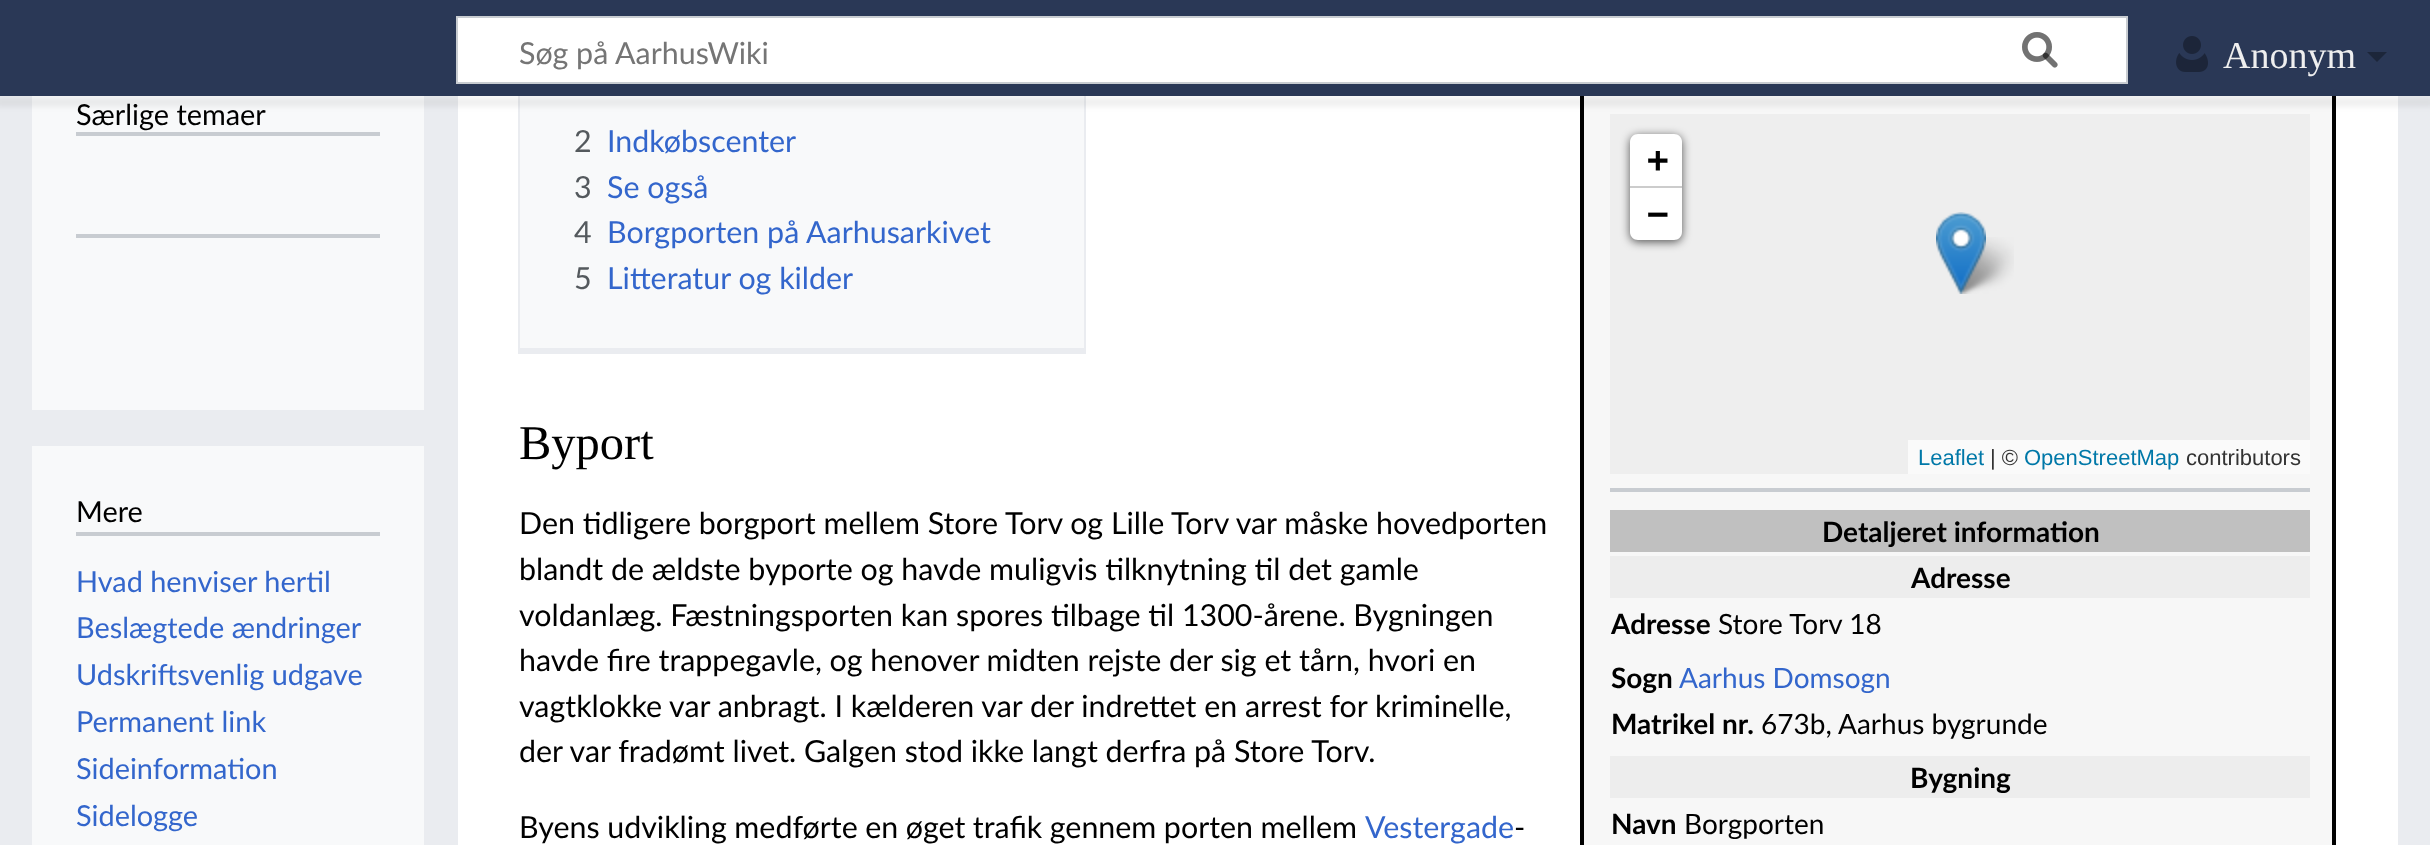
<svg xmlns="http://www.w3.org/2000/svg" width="2430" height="845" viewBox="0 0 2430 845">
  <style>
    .t1 { font: 30.4px Lato; fill: #757575; }
    .t2 { font: 38px Liberation Serif; fill: #efefef; }
    .t3 { font: 28.9px Lato; fill: #000; }
    .t4 { font: 28.9px Lato; fill: #36c; }
    .t5 { font: 30.4px Lato; fill: #54595d; }
    .t6 { font: 30.4px Lato; fill: #36c; }
    .t7 { font: bold 36px DejaVu Sans Mono; fill: #000; }
    .t8 { font: 22px Liberation Sans; fill: #0078a8; }
    .t9 { font: 22px Liberation Sans; fill: #333; }
    .t10 { font: bold 28px Lato; fill: #000; }
    .t11 { font: 28px Lato; fill: #000; }
    .t12 { font: 28px Lato; fill: #36c; }
    .t13 { font: 48.5px Liberation Serif; fill: #000; }
    .t14 { font: 30.4px Lato; fill: #000; }
  </style>
  <rect width="100%" height="100%" fill="#eaecf0"/>
  <rect x="32" y="96" width="392" height="314" fill="#f8f9fa"/>
  <rect x="458" y="96" width="1940" height="749" fill="#fff"/>
  <rect x="520" y="96" width="564" height="252" fill="#f8f9fa"/>
  <rect x="1084" y="96" width="2" height="258" fill="#eaecf0"/>
  <rect x="518" y="348" width="568" height="6" fill="#eaecf0"/>
  <rect x="518" y="96" width="2" height="258" fill="#eaecf0"/>
  <rect x="1584" y="96" width="748" height="749" fill="#f7f7f7"/>
  <rect x="1582" y="-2" width="752" height="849" fill="none" stroke="#000" stroke-width="4"/>
  <rect x="1610" y="114" width="700" height="360" fill="#eee"/>
  <rect x="-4" y="98" width="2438" height="8" fill="#00000012" filter="blur(3px)"/>
  <rect x="0" y="0" width="2430" height="96" fill="#2a3856"/>
  <rect x="457" y="17" width="1670" height="66" fill="#fff" stroke="#c8ccd1" stroke-width="2"/>
  <image x="2022" y="32" width="36" height="36" href="images/1.png"/>
  <text x="519" y="64" class="t1">Søg på AarhusWiki</text>
  <image x="2022" y="32" width="36" height="36" href="images/2.png"/>
  <image x="2176" y="36" width="32" height="36" href="images/3.png"/>
  <text x="2223" y="68" class="t2">Anonym</text>
  <path d="M2387 52L2377 62L2367 52Z" fill="#1c263a"/>
  <rect x="76" y="132" width="304" height="4" fill="#c8ccd1"/>
  <text x="76" y="125" class="t3">Særlige temaer</text>
  <rect x="76" y="234" width="304" height="4" fill="#c8ccd1"/>
  <rect x="32" y="446" width="392" height="399" fill="#f8f9fa"/>
  <rect x="76" y="532" width="304" height="4" fill="#c8ccd1"/>
  <text x="76" y="522" class="t3">Mere</text>
  <text x="76" y="592" class="t4">Hvad henviser hertil</text>
  <text x="76" y="638" class="t4">Beslægtede ændringer</text>
  <text x="76" y="685" class="t4">Udskriftsvenlig udgave</text>
  <text x="76" y="732" class="t4">Permanent link</text>
  <text x="76" y="779" class="t4">Sideinformation</text>
  <text x="76" y="826" class="t4">Sidelogge</text>
  <text x="574" y="152" class="t5">2</text>
  <text x="607" y="152" class="t6">Indkøbscenter</text>
  <text x="574" y="198" class="t5">3</text>
  <text x="607" y="198" class="t6">Se også</text>
  <text x="574" y="243" class="t5">4</text>
  <text x="607" y="243" class="t6">Borgporten på Aarhusarkivet</text>
  <text x="574" y="289" class="t5">5</text>
  <text x="607" y="289" class="t6">Litteratur og kilder</text>
  <rect x="1630" y="136" width="52" height="106" rx="8" fill="#000000a6" filter="blur(5px)"/>
  <path d="M1638 134H1674C1678.5 134 1682 137.5 1682 142V188H1630V142C1630 137.5 1633.5 134 1638 134Z" fill="#fff"/>
  <rect x="1630" y="186" width="52" height="2" fill="#ccc"/>
  <text x="1647" y="172" class="t7">+</text>
  <path d="M1630 188H1682V232C1682 236.5 1678.5 240 1674 240H1638C1633.5 240 1630 236.5 1630 232Z" fill="#fff"/>
  <text x="1647" y="226" class="t7">−</text>
  <rect x="1908" y="440" width="402" height="34" fill="#fafafa"/>
  <text x="1918" y="465" class="t8">Leaflet</text>
  <text x="1990" y="465" class="t9">| ©</text>
  <text x="2024" y="465" class="t8">OpenStreetMap</text>
  <text x="2186" y="465" class="t9">contributors</text>
  <image x="1954" y="237" width="60" height="57" href="images/5.png"/>
  <image x="1936" y="212" width="50" height="82" href="images/4.png"/>
  <rect x="1610" y="488" width="700" height="4" fill="#c8ccd1"/>
  <rect x="1610" y="510" width="700" height="42" fill="#c0c0c0"/>
  <text x="1822" y="542" class="t10">Detaljeret information</text>
  <rect x="1610" y="556" width="700" height="42" fill="#ededed"/>
  <text x="1911" y="588" class="t10">Adresse</text>
  <text x="1611" y="634" class="t10">Adresse</text>
  <text x="1718" y="634" class="t11">Store Torv 18</text>
  <text x="1611" y="688" class="t10">Sogn</text>
  <text x="1679" y="688" class="t12">Aarhus Domsogn</text>
  <text x="1611" y="734" class="t10">Matrikel nr.</text>
  <text x="1761" y="734" class="t11">673b, Aarhus bygrunde</text>
  <rect x="1610" y="756" width="700" height="42" fill="#ededed"/>
  <text x="1910" y="788" class="t10">Bygning</text>
  <text x="1611" y="834" class="t10">Navn</text>
  <text x="1684" y="834" class="t11">Borgporten</text>
  <text x="519" y="459" class="t13">Byport</text>
  <text x="519" y="534" class="t14">Den tidligere borgport mellem Store Torv og Lille Torv var måske hovedporten</text>
  <text x="519" y="580" class="t14">blandt de ældste byporte og havde muligvis tilknytning til det gamle</text>
  <text x="519" y="626" class="t14">voldanlæg. Fæstningsporten kan spores tilbage til 1300-årene. Bygningen</text>
  <text x="519" y="671" class="t14">havde fire trappegavle, og henover midten rejste der sig et tårn, hvori en</text>
  <text x="519" y="717" class="t14">vagtklokke var anbragt. I kælderen var der indrettet en arrest for kriminelle,</text>
  <text x="519" y="762" class="t14">der var fradømt livet. Galgen stod ikke langt derfra på Store Torv.</text>
  <text x="519" y="838" word-spacing="-0.25" class="t14">Byens udvikling medførte en øget trafik gennem porten mellem</text>
  <text x="1365" y="838" class="t6">Vestergade</text>
  <text x="1514" y="838" class="t14">-</text>
</svg>
